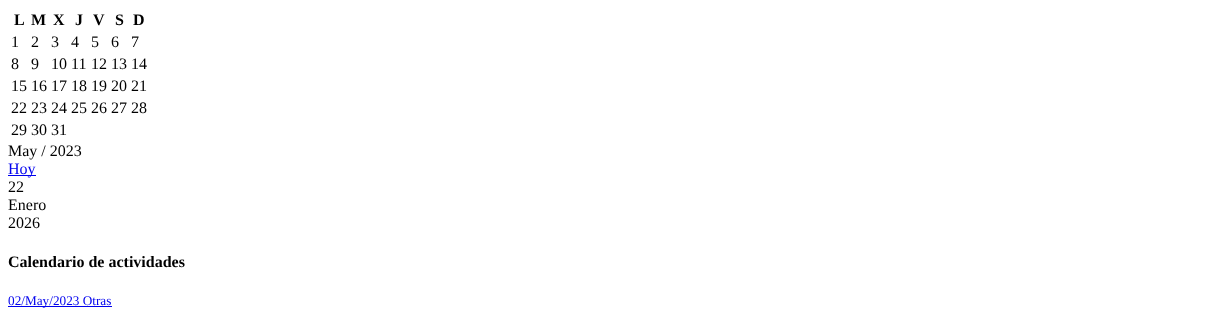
<svg xmlns="http://www.w3.org/2000/svg" width="1231" height="310" viewBox="0 0 1231 310">
  <style>
    .t1 { font: bold 16px Liberation Serif; fill: #000; }
    .t2 { font: 16px Liberation Serif; fill: #000; }
    .t3 { font: 16px Liberation Serif; fill: #00e; }
    .t4 { font: 13.25px Liberation Serif; fill: #00e; }
  </style>
  <rect width="100%" height="100%" fill="#fff"/>
  <text x="14" y="25" class="t1">L</text>
  <text x="31" y="25" class="t1">M</text>
  <text x="53" y="25" class="t1">X</text>
  <text x="75" y="25" class="t1">J</text>
  <text x="93" y="25" class="t1">V</text>
  <text x="115" y="25" class="t1">S</text>
  <text x="133" y="25" class="t1">D</text>
  <text x="11" y="47" class="t2">1</text>
  <text x="31" y="47" class="t2">2</text>
  <text x="51" y="47" class="t2">3</text>
  <text x="71" y="47" class="t2">4</text>
  <text x="91" y="47" class="t2">5</text>
  <text x="111" y="47" class="t2">6</text>
  <text x="131" y="47" class="t2">7</text>
  <text x="11" y="69" class="t2">8</text>
  <text x="31" y="69" class="t2">9</text>
  <text x="51" y="69" class="t2">10 11</text>
  <text x="91" y="69" class="t2">12 13 14</text>
  <text x="11" y="91" class="t2">15 16 17 18 19 20 21</text>
  <text x="11" y="113" class="t2">22 23 24 25 26 27 28</text>
  <text x="11" y="135" class="t2">29 30 31</text>
  <text x="8" y="156" class="t2">May / 2023</text>
  <rect x="8" y="175" width="28" height="1" fill="#00e"/>
  <text x="8" y="174" class="t3">Hoy</text>
  <text x="8" y="192" class="t2">22</text>
  <text x="8" y="210" class="t2">Enero</text>
  <text x="8" y="228" class="t2">2026</text>
  <text x="8" y="267" class="t1">Calendario de actividades</text>
  <rect x="8" y="306" width="104" height="1" fill="#00e"/>
  <text x="8" y="305" class="t4">02/May/2023 Otras</text>
</svg>
